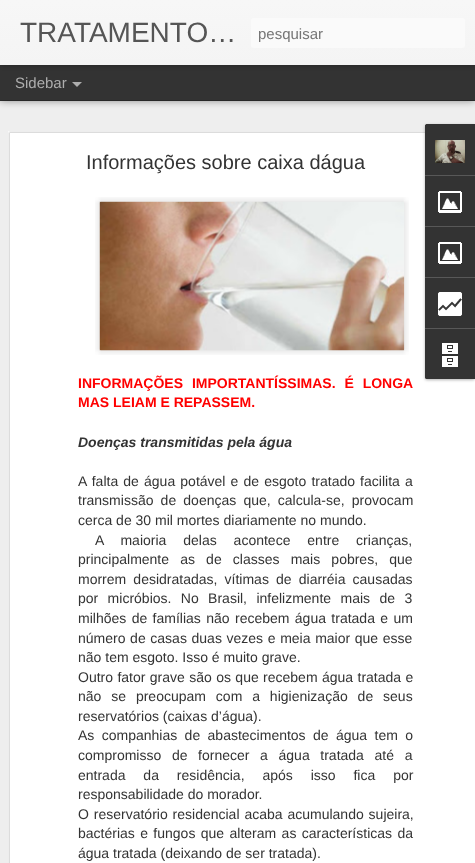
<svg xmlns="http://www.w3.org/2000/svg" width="475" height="863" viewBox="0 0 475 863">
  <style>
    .t1 { font: 28px Liberation Sans; fill: #555; }
    .t2 { font: 15px Liberation Sans; fill: #757575; }
    .t3 { font: 15px Liberation Sans; fill: #adadad; }
    .t4 { font: 20px Liberation Sans; fill: #333; }
    .t5 { font: bold 14px Liberation Sans; fill: #f00; }
    .t6 { font: italic bold 14px Liberation Sans; fill: #333; }
    .t7 { font: 14px Liberation Sans; fill: #333; }
  </style>
  <defs>
    <linearGradient id="g1" gradientUnits="userSpaceOnUse" x1="0" y1="0" x2="0" y2="65"><stop offset="0" stop-color="#f7f7f7"/><stop offset="1" stop-color="#f4f4f4"/></linearGradient>
    <clipPath id="clip1"><rect x="258" y="25" width="200" height="17"/></clipPath>
  </defs>
  <rect width="100%" height="100%" fill="#333"/>
  <rect x="0" y="101" width="475" height="762" fill="#eee"/>
  <rect x="0" y="65" width="475" height="35" fill="#00000080" filter="blur(4px)"/>
  <rect x="0" y="65" width="475" height="35" fill="#333"/>
  <rect x="0" y="0" width="475" height="65" fill="#0000004d" filter="blur(2.5px)"/>
  <rect x="0" y="0" width="475" height="65" fill="url(#g1)"/>
  <text x="20" y="42" class="t1">TRATAMENTO…</text>
  <rect x="251" y="18" width="214" height="30" rx="3" fill="#fafafa"/>
  <g clip-path="url(#clip1)">
    <text x="258" y="39" class="t2">pesquisar</text>
  </g>
  <text x="15" y="88" class="t3">Sidebar</text>
  <path d="M72 82H82L77 87Z" fill="#adadad"/>
  <rect x="8" y="131" width="467" height="732" fill="#fff"/>
  <image x="8" y="131" width="417" height="732" href="images/1.png"/>
  <text x="86" y="169" class="t4">Informações sobre caixa dágua</text>
  <image x="95" y="197" width="314" height="158" href="images/2.png"/>
  <image x="99" y="201" width="306" height="150" href="images/3.png"/>
  <text x="78" y="388" word-spacing="5" class="t5">INFORMAÇÕES IMPORTANTÍSSIMAS. É LONGA</text>
  <text x="78" y="407" class="t5">MAS LEIAM E REPASSEM.</text>
  <text x="78" y="447" class="t6">Doenças transmitidas pela água</text>
  <text x="78" y="486" word-spacing="1.25" class="t7">A falta de água potável e de esgoto tratado facilita a</text>
  <text x="78" y="505" word-spacing="3.25" class="t7">transmissão de doenças que, calcula-se, provocam</text>
  <text x="78" y="525" class="t7">cerca de 30 mil mortes diariamente no mundo.</text>
  <text x="95" y="545" word-spacing="13" class="t7">A maioria delas acontece entre crianças,</text>
  <text x="78" y="564" word-spacing="7.25" class="t7">principalmente as de classes mais pobres, que</text>
  <text x="78" y="584" word-spacing="3.25" class="t7">morrem desidratadas, vítimas de diarréia causadas</text>
  <text x="78" y="603" word-spacing="5.5" class="t7">por micróbios. No Brasil, infelizmente mais de 3</text>
  <text x="78" y="623" word-spacing="1.5" class="t7">milhões de famílias não recebem água tratada e um</text>
  <text x="78" y="643" word-spacing="0.75" class="t7">número de casas duas vezes e meia maior que esse</text>
  <text x="78" y="662" class="t7">não tem esgoto. Isso é muito grave.</text>
  <text x="78" y="682" word-spacing="0.5" class="t7">Outro fator grave são os que recebem água tratada e</text>
  <text x="78" y="701" word-spacing="6" class="t7">não se preocupam com a higienização de seus</text>
  <text x="78" y="721" class="t7">reservatórios (caixas d’água).</text>
  <text x="78" y="740" word-spacing="3.5" class="t7">As companhias de abastecimentos de água tem o</text>
  <text x="78" y="760" word-spacing="6.75" class="t7">compromisso de fornecer a água tratada até a</text>
  <text x="78" y="780" word-spacing="14" class="t7">entrada da residência, após isso fica por</text>
  <text x="78" y="799" class="t7">responsabilidade do morador.</text>
  <text x="78" y="819" word-spacing="1" class="t7">O reservatório residencial acaba acumulando sujeira,</text>
  <text x="78" y="838" word-spacing="1.5" class="t7">bactérias e fungos que alteram as características da</text>
  <text x="78" y="858" class="t7">água tratada (deixando de ser tratada).</text>
  <rect x="425" y="125" width="50" height="255" rx="2" fill="#0000004d" filter="blur(1.5px)"/>
  <path d="M427 124H475V379H427C426 379 425 378 425 377V126C425 125 426 124 427 124Z" fill="#333"/>
  <path d="M427 124H475V175H425V126C425 125 426 124 427 124Z" fill="#333"/>
  <image x="435" y="140" width="30" height="23" href="images/4.png"/>
  <rect x="425" y="175" width="50" height="1" fill="#585858"/>
  <image x="438" y="191" width="24" height="22" href="images/5.png"/>
  <rect x="425" y="226" width="50" height="1" fill="#585858"/>
  <image x="438" y="242" width="24" height="22" href="images/5.png"/>
  <rect x="425" y="277" width="50" height="1" fill="#585858"/>
  <image x="438" y="292" width="24" height="24" href="images/6.png"/>
  <path d="M425 328H475V379H427C426 379 425 378 425 377Z" fill="#333"/>
  <rect x="425" y="328" width="50" height="1" fill="#585858"/>
  <image x="442" y="343" width="16" height="24" href="images/7.png"/>
</svg>
